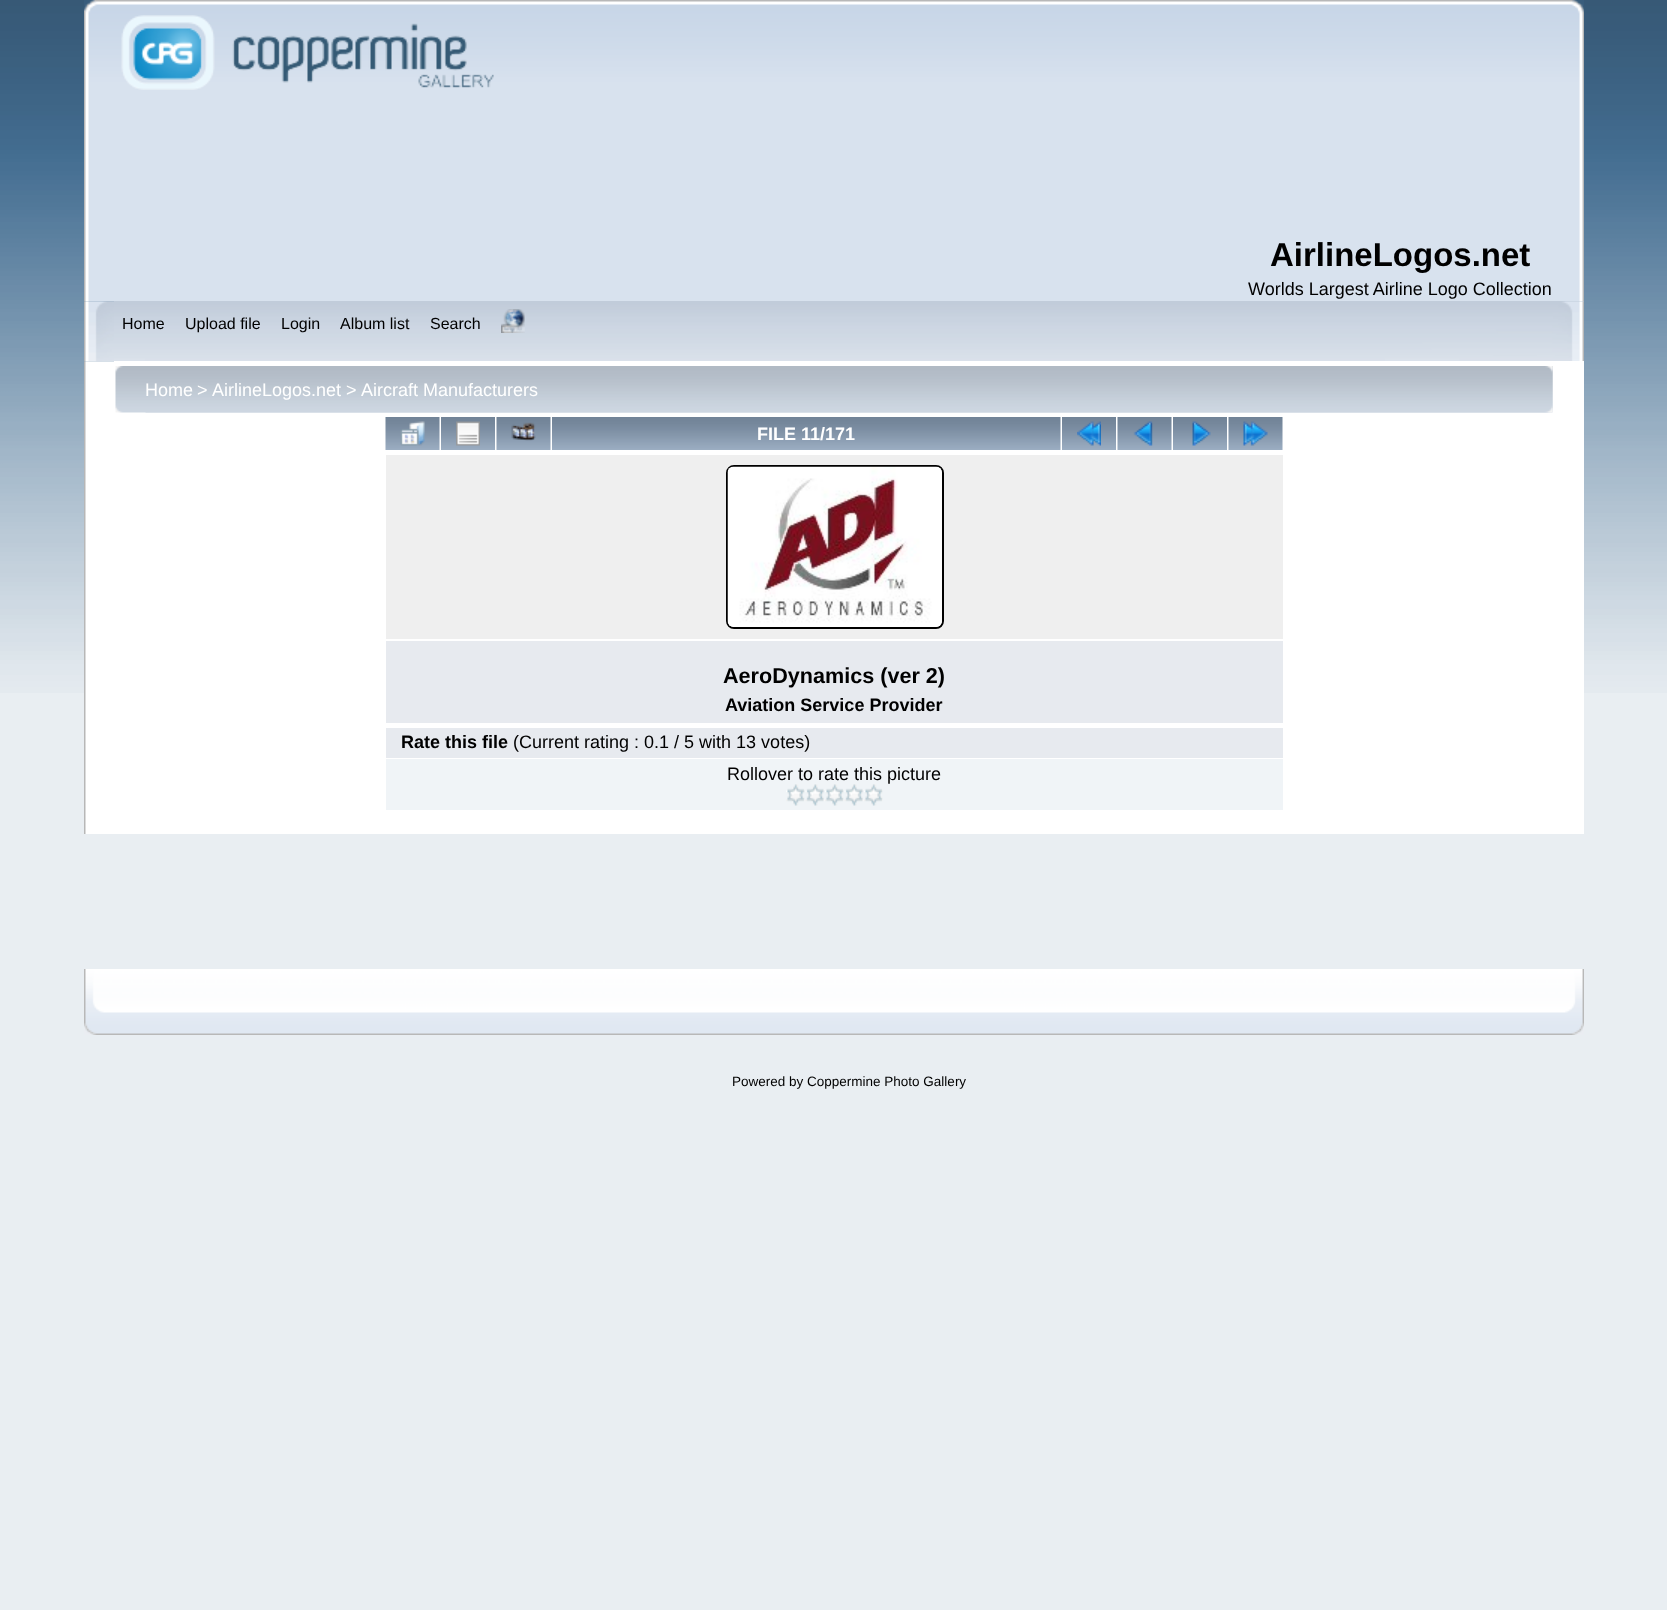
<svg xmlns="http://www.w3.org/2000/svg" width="1667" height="1610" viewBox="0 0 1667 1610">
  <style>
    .t1 { font: bold 33px Liberation Sans; fill: #000; }
    .t2 { font: 18px Liberation Sans; fill: #000; }
    .t3 { font: 16px Liberation Sans; fill: #000; }
    .t4 { font: 18px Liberation Sans; fill: #fff; }
    .t5 { font: bold 18px Liberation Sans; fill: #fff; }
    .t6 { font: bold 21.6px Liberation Sans; fill: #000; }
    .t7 { font: bold 18px Liberation Sans; fill: #000; }
    .t8 { font: 13.5px Liberation Sans; fill: #000; }
  </style>
  <rect width="100%" height="100%" fill="#e9eef2"/>
  <image x="0" y="0" width="1667" height="693" href="images/1.png"/>
  <image x="84" y="0" width="1500" height="302" href="images/2.png"/>
  <image x="114" y="0" width="1470" height="302" href="images/3.png"/>
  <image x="121" y="15" width="373" height="75" href="images/4.png"/>
  <text x="1270" y="266" class="t1">AirlineLogos.net</text>
  <text x="1248" y="295" class="t2">Worlds Largest Airline Logo Collection</text>
  <image x="84" y="301" width="1500" height="61" href="images/5.png"/>
  <image x="114" y="301" width="1470" height="60" href="images/6.png"/>
  <text x="122" y="329" class="t3">Home</text>
  <text x="185" y="329" class="t3">Upload file</text>
  <text x="281" y="329" class="t3">Login</text>
  <text x="340" y="329" class="t3">Album list</text>
  <text x="430" y="329" class="t3">Search</text>
  <image x="501" y="309" width="24" height="24" href="images/7.png"/>
  <image x="84" y="361" width="30" height="473" href="images/8.png"/>
  <rect x="114" y="361" width="1470" height="473" fill="#fff"/>
  <image x="115" y="366" width="1438" height="47" href="images/9.png"/>
  <image x="145" y="366" width="1408" height="47" href="images/10.png"/>
  <text x="145" y="396" class="t4">Home</text>
  <text x="197" y="396" class="t4">&gt;</text>
  <text x="212" y="396" class="t4">AirlineLogos.net</text>
  <text x="346" y="396" class="t4">&gt;</text>
  <text x="361" y="396" class="t4">Aircraft Manufacturers</text>
  <image x="385" y="417" width="55" height="33" href="images/11.png"/>
  <image x="400" y="421" width="25" height="25" href="images/12.png"/>
  <image x="441" y="417" width="54" height="33" href="images/13.png"/>
  <image x="456" y="421" width="24" height="25" href="images/14.png"/>
  <image x="496" y="417" width="55" height="33" href="images/11.png"/>
  <image x="511" y="422" width="25" height="19" href="images/15.png"/>
  <image x="552" y="417" width="509" height="33" href="images/16.png"/>
  <text x="757" y="440" class="t5">FILE 11/171</text>
  <image x="1062" y="417" width="54" height="33" href="images/13.png"/>
  <image x="1077" y="421" width="24" height="25" href="images/17.png"/>
  <image x="1117" y="417" width="55" height="33" href="images/11.png"/>
  <image x="1133" y="421" width="20" height="25" href="images/18.png"/>
  <image x="1173" y="417" width="54" height="33" href="images/13.png"/>
  <image x="1192" y="421" width="19" height="25" href="images/19.png"/>
  <image x="1228" y="417" width="55" height="33" href="images/11.png"/>
  <image x="1243" y="421" width="25" height="25" href="images/20.png"/>
  <rect x="386" y="455" width="897" height="184" fill="#efefef"/>
  <rect x="727" y="466" width="216" height="162" rx="7" fill="none" stroke="#000" stroke-width="2"/>
  <image x="727" y="466" width="215" height="161" href="images/21.png"/>
  <rect x="386" y="641" width="897" height="82" fill="#e7eaef"/>
  <text x="723" y="683" class="t6">AeroDynamics (ver 2)</text>
  <text x="725" y="711" class="t7">Aviation Service Provider</text>
  <rect x="386" y="728" width="897" height="30" fill="#e7eaef"/>
  <text x="401" y="748" class="t7">Rate this file</text>
  <text x="513" y="748" class="t2">(Current rating : 0.1 / 5 with 13 votes)</text>
  <rect x="386" y="759" width="897" height="51" fill="#f0f4f7"/>
  <text x="727" y="780" class="t2">Rollover to rate this picture</text>
  <image x="786" y="784" width="19" height="22" href="images/22.png"/>
  <image x="805" y="784" width="20" height="22" href="images/23.png"/>
  <image x="825" y="784" width="19" height="22" href="images/22.png"/>
  <image x="844" y="784" width="20" height="22" href="images/23.png"/>
  <image x="864" y="784" width="19" height="22" href="images/22.png"/>
  <image x="84" y="969" width="1481" height="66" href="images/24.png"/>
  <image x="1565" y="969" width="19" height="66" href="images/25.png"/>
  <text x="732" y="1086" class="t8">Powered by Coppermine Photo Gallery</text>
</svg>
